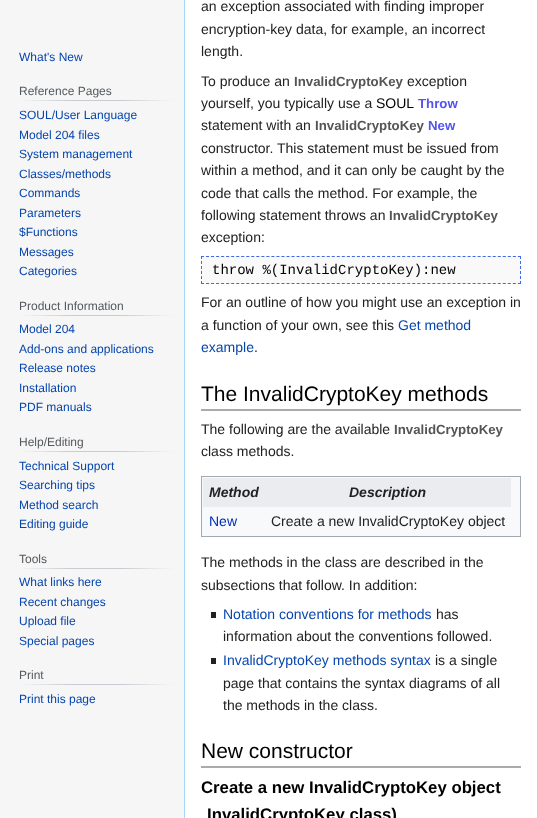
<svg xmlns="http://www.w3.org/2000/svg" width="538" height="818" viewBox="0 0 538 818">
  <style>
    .t1 { font: 12px Liberation Sans; fill: #0645ad; }
    .t2 { font: 12px Liberation Sans; fill: #54595d; }
    .t3 { font: 14px Liberation Sans; fill: #202122; }
    .t4 { font: bold 13.25px Liberation Sans; fill: #555; }
    .t5 { font: 14px Liberation Sans; fill: #000; }
    .t6 { font: bold 13.25px Liberation Sans; fill: #5353ef; }
    .t7 { font: 14px Liberation Mono; fill: #000; }
    .t8 { font: 14px Liberation Sans; fill: #0645ad; }
    .t9 { font: 21px Liberation Sans; fill: #000; }
    .t10 { font: italic bold 14px Liberation Sans; fill: #202122; }
    .t11 { font: 14px Liberation Sans; fill: #002bb8; }
    .t12 { font: bold 16.75px Liberation Sans; fill: #000; }
  </style>
  <defs>
    <linearGradient id="g1" gradientUnits="userSpaceOnUse" x1="19" y1="101" x2="174" y2="101"><stop offset="0" stop-color="#f6f6f6"/><stop offset="0.33" stop-color="#c8ccd1"/><stop offset="0.66" stop-color="#c8ccd1"/><stop offset="1" stop-color="#f6f6f6"/></linearGradient>
    <linearGradient id="g2" gradientUnits="userSpaceOnUse" x1="19" y1="316" x2="174" y2="316"><stop offset="0" stop-color="#f6f6f6"/><stop offset="0.33" stop-color="#c8ccd1"/><stop offset="0.66" stop-color="#c8ccd1"/><stop offset="1" stop-color="#f6f6f6"/></linearGradient>
    <linearGradient id="g3" gradientUnits="userSpaceOnUse" x1="19" y1="452" x2="174" y2="452"><stop offset="0" stop-color="#f6f6f6"/><stop offset="0.33" stop-color="#c8ccd1"/><stop offset="0.66" stop-color="#c8ccd1"/><stop offset="1" stop-color="#f6f6f6"/></linearGradient>
    <linearGradient id="g4" gradientUnits="userSpaceOnUse" x1="19" y1="569" x2="174" y2="569"><stop offset="0" stop-color="#f6f6f6"/><stop offset="0.33" stop-color="#c8ccd1"/><stop offset="0.66" stop-color="#c8ccd1"/><stop offset="1" stop-color="#f6f6f6"/></linearGradient>
    <linearGradient id="g5" gradientUnits="userSpaceOnUse" x1="19" y1="685" x2="174" y2="685"><stop offset="0" stop-color="#f6f6f6"/><stop offset="0.33" stop-color="#c8ccd1"/><stop offset="0.66" stop-color="#c8ccd1"/><stop offset="1" stop-color="#f6f6f6"/></linearGradient>
  </defs>
  <rect width="100%" height="100%" fill="#f6f6f6"/>
  <text x="19" y="61" class="t1">What's New</text>
  <rect x="19" y="100" width="155" height="1" fill="url(#g1)"/>
  <text x="19" y="95" class="t2">Reference Pages</text>
  <text x="19" y="119" class="t1">SOUL/User Language</text>
  <text x="19" y="139" class="t1">Model 204 files</text>
  <text x="19" y="158" class="t1">System management</text>
  <text x="19" y="178" class="t1">Classes/methods</text>
  <text x="19" y="197" class="t1">Commands</text>
  <text x="19" y="217" class="t1">Parameters</text>
  <text x="19" y="236" class="t1">$Functions</text>
  <text x="19" y="256" class="t1">Messages</text>
  <text x="19" y="275" class="t1">Categories</text>
  <rect x="19" y="315" width="155" height="1" fill="url(#g2)"/>
  <text x="19" y="310" class="t2">Product Information</text>
  <text x="19" y="333" class="t1">Model 204</text>
  <text x="19" y="353" class="t1">Add-ons and applications</text>
  <text x="19" y="372" class="t1">Release notes</text>
  <text x="19" y="392" class="t1">Installation</text>
  <text x="19" y="411" class="t1">PDF manuals</text>
  <rect x="19" y="451" width="155" height="1" fill="url(#g3)"/>
  <text x="19" y="446" class="t2">Help/Editing</text>
  <text x="19" y="470" class="t1">Technical Support</text>
  <text x="19" y="489" class="t1">Searching tips</text>
  <text x="19" y="509" class="t1">Method search</text>
  <text x="19" y="528" class="t1">Editing guide</text>
  <rect x="19" y="568" width="155" height="1" fill="url(#g4)"/>
  <text x="19" y="563" class="t2">Tools</text>
  <text x="19" y="586" class="t1">What links here</text>
  <text x="19" y="606" class="t1">Recent changes</text>
  <text x="19" y="625" class="t1">Upload file</text>
  <text x="19" y="645" class="t1">Special pages</text>
  <rect x="19" y="684" width="155" height="1" fill="url(#g5)"/>
  <text x="19" y="679" class="t2">Print</text>
  <text x="19" y="703" class="t1">Print this page</text>
  <rect x="184.5" y="-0.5" width="353" height="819" fill="#fff" stroke="#a7d7f9"/>
  <text x="201" y="11" class="t3">an exception associated with finding improper</text>
  <text x="201" y="34" class="t3">encryption-key data, for example, an incorrect</text>
  <text x="201" y="56" class="t3">length.</text>
  <text x="201" y="86" class="t3">To produce an</text>
  <text x="294" y="86" class="t4">InvalidCryptoKey</text>
  <text x="407" y="86" class="t3">exception</text>
  <text x="201" y="108" class="t3">yourself, you typically use a</text>
  <text x="376" y="108" class="t5">SOUL</text>
  <text x="418" y="108" class="t6">Throw</text>
  <text x="201" y="130" class="t3">statement with an</text>
  <text x="315" y="130" class="t4">InvalidCryptoKey</text>
  <text x="428" y="130" class="t6">New</text>
  <text x="201" y="153" class="t3">constructor. This statement must be issued from</text>
  <text x="201" y="175" class="t3">within a method, and it can only be caught by the</text>
  <text x="201" y="198" class="t3">code that calls the method. For example, the</text>
  <text x="201" y="220" class="t3">following statement throws an</text>
  <text x="389" y="220" class="t4">InvalidCryptoKey</text>
  <text x="201" y="242" class="t3">exception:</text>
  <rect x="201" y="256" width="320" height="28" fill="#f9f9f9"/>
  <path d="M201 256.5H521" fill="none" stroke="#4169e1" stroke-dasharray="3 2.03"/>
  <path d="M520.5 256V284" fill="none" stroke="#4169e1" stroke-dasharray="3 2"/>
  <path d="M201 283.5H521" fill="none" stroke="#4169e1" stroke-dasharray="3 2.03"/>
  <path d="M201.5 256V284" fill="none" stroke="#4169e1" stroke-dasharray="3 2"/>
  <text x="212" y="274" class="t7">throw %(InvalidCryptoKey):new</text>
  <text x="201" y="307" class="t3">For an outline of how you might use an exception in</text>
  <text x="201" y="330" class="t3">a function of your own, see this</text>
  <text x="398" y="330" class="t8">Get method</text>
  <text x="201" y="352" class="t8">example</text>
  <text x="254" y="352" class="t3">.</text>
  <rect x="201" y="409" width="320" height="2" fill="#aaa"/>
  <text x="201" y="401" class="t9">The InvalidCryptoKey methods</text>
  <text x="201" y="434" class="t3">The following are the available</text>
  <text x="394" y="434" class="t4">InvalidCryptoKey</text>
  <text x="201" y="456" class="t3">class methods.</text>
  <rect x="201.5" y="476.5" width="319" height="60" fill="#f8f9fa" stroke="#a2a9b1"/>
  <rect x="203" y="478" width="308" height="29" fill="#eaecf0"/>
  <text x="209" y="497" class="t10">Method</text>
  <text x="349" y="497" class="t10">Description</text>
  <text x="209" y="526" class="t11">New</text>
  <text x="271" y="526" class="t3">Create a new InvalidCryptoKey object</text>
  <text x="201" y="567" class="t3">The methods in the class are described in the</text>
  <text x="201" y="590" class="t3">subsections that follow. In addition:</text>
  <rect x="211" y="612" width="5" height="6" fill="#202122"/>
  <text x="223" y="619" class="t8">Notation conventions for methods</text>
  <text x="436" y="619" class="t3">has</text>
  <text x="223" y="641" class="t3">information about the conventions followed.</text>
  <rect x="211" y="658" width="5" height="6" fill="#202122"/>
  <text x="223" y="665" class="t8">InvalidCryptoKey methods syntax</text>
  <text x="435" y="665" class="t3">is a single</text>
  <text x="223" y="688" class="t3">page that contains the syntax diagrams of all</text>
  <text x="223" y="710" class="t3">the methods in the class.</text>
  <rect x="201" y="766" width="320" height="2" fill="#aaa"/>
  <text x="201" y="758" class="t9">New constructor</text>
  <text x="201" y="793" class="t12">Create a new InvalidCryptoKey object</text>
  <text x="207" y="820" class="t12">InvalidCryptoKey class)</text>
</svg>
